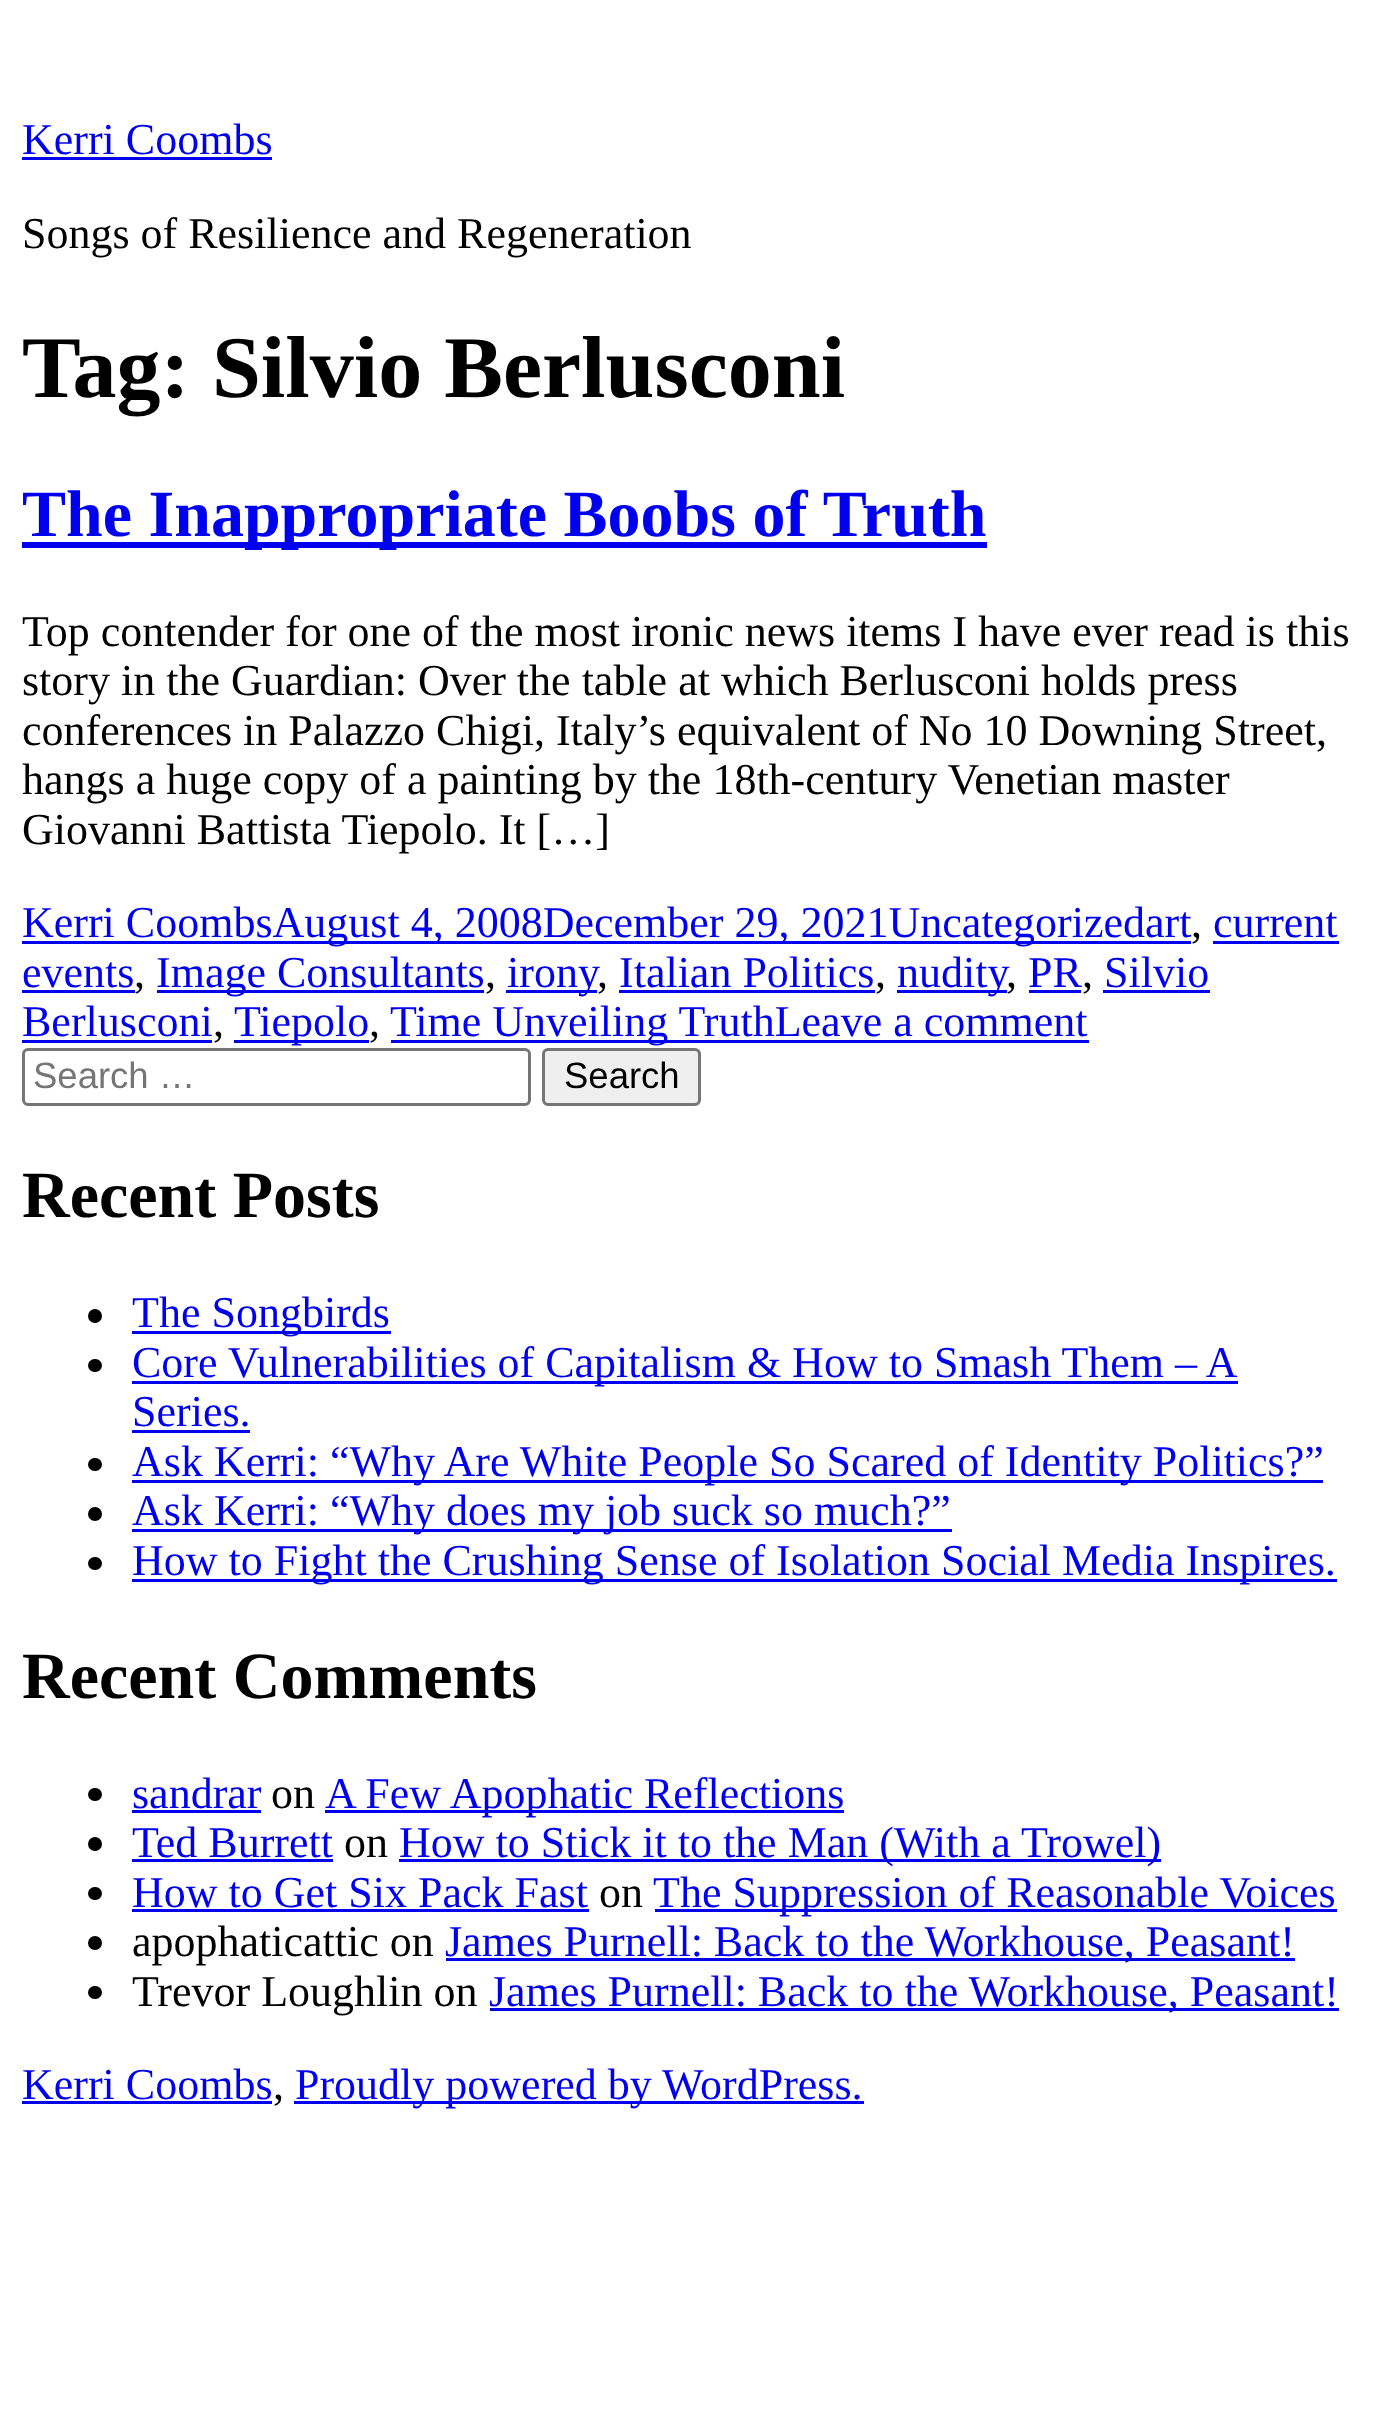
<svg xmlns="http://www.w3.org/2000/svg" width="1373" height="2436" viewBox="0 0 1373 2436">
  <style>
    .t1 { font: 44px Liberation Serif; fill: #00e; }
    .t2 { font: 44px Liberation Serif; fill: #000; }
    .t3 { font: bold 88px Liberation Serif; fill: #000; }
    .t4 { font: bold 66px Liberation Serif; fill: #00e; }
    .t5 { font: 36.5px Liberation Sans; fill: #757575; }
    .t6 { font: 36.5px Liberation Sans; fill: #000; }
    .t7 { font: bold 66px Liberation Serif; fill: #000; }
  </style>
  <rect width="100%" height="100%" fill="#fff"/>
  <text x="22" y="154" class="t1">Kerri Coombs</text>
  <rect x="22" y="157" width="250" height="3" fill="#00e"/>
  <text x="22" y="248" class="t2">Songs of Resilience and Regeneration</text>
  <text x="22" y="397" class="t3">Tag: Silvio Berlusconi</text>
  <rect x="22" y="542" width="965" height="6" fill="#00e"/>
  <text x="22" y="536" class="t4">The Inappropriate Boobs of Truth</text>
  <text x="22" y="646" class="t2">Top contender for one of the most ironic news items I have ever read is this</text>
  <text x="22" y="695" class="t2">story in the Guardian: Over the table at which Berlusconi holds press</text>
  <text x="22" y="745" class="t2">conferences in Palazzo Chigi, Italy’s equivalent of No 10 Downing Street,</text>
  <text x="22" y="794" class="t2">hangs a huge copy of a painting by the 18th-century Venetian master</text>
  <text x="22" y="844" class="t2">Giovanni Battista Tiepolo. It […]</text>
  <rect x="22" y="941" width="1122" height="3" fill="#00e"/>
  <text x="22" y="937" class="t1">Kerri CoombsAugust 4, 2008December 29, 2021Uncategorizedart</text>
  <text x="1191" y="937" class="t2">,</text>
  <rect x="1144" y="941" width="47" height="3" fill="#00e"/>
  <rect x="1213" y="941" width="126" height="3" fill="#00e"/>
  <text x="1213" y="937" class="t1">current</text>
  <text x="22" y="987" class="t1">events</text>
  <text x="134" y="987" class="t2">,</text>
  <rect x="22" y="990" width="113" height="3" fill="#00e"/>
  <rect x="157" y="990" width="327" height="3" fill="#00e"/>
  <text x="156" y="987" class="t1">Image Consultants</text>
  <text x="485" y="987" class="t2">,</text>
  <rect x="506" y="990" width="91" height="3" fill="#00e"/>
  <text x="507" y="987" class="t1">irony</text>
  <text x="597" y="987" class="t2">,</text>
  <text x="619" y="987" class="t1">Italian Politics</text>
  <text x="875" y="987" class="t2">,</text>
  <rect x="619" y="990" width="256" height="3" fill="#00e"/>
  <rect x="897" y="990" width="110" height="3" fill="#00e"/>
  <text x="897" y="987" class="t1">nudity</text>
  <text x="1006" y="987" class="t2">,</text>
  <text x="1028" y="987" class="t1">PR</text>
  <text x="1082" y="987" class="t2">,</text>
  <rect x="1029" y="990" width="52" height="3" fill="#00e"/>
  <rect x="1103" y="990" width="107" height="3" fill="#00e"/>
  <text x="1104" y="987" class="t1">Silvio</text>
  <text x="22" y="1036" class="t1">Berlusconi</text>
  <text x="213" y="1036" class="t2">,</text>
  <rect x="22" y="1040" width="190" height="3" fill="#00e"/>
  <rect x="234" y="1040" width="135" height="3" fill="#00e"/>
  <text x="234" y="1036" class="t1">Tiepolo</text>
  <text x="369" y="1036" class="t2">,</text>
  <rect x="391" y="1040" width="698" height="3" fill="#00e"/>
  <text x="390" y="1036" class="t1">Time Unveiling TruthLeave a comment</text>
  <rect x="23.5" y="1049.5" width="506" height="55" rx="4.5" fill="none" stroke="#767676" stroke-width="3"/>
  <text x="33" y="1088" class="t5">Search …</text>
  <rect x="543.5" y="1049.5" width="156" height="55" rx="4.5" fill="#efefef" stroke="#767676" stroke-width="3"/>
  <text x="564" y="1088" class="t6">Search</text>
  <text x="22" y="1217" class="t7">Recent Posts</text>
  <circle cx="95" cy="1316" r="7" fill="#000"/>
  <rect x="132" y="1331" width="259" height="3" fill="#00e"/>
  <text x="132" y="1327" class="t1">The Songbirds</text>
  <rect x="88" y="1359" width="14" height="13" rx="6.5" fill="#000"/>
  <rect x="132" y="1381" width="1106" height="3" fill="#00e"/>
  <text x="132" y="1377" class="t1">Core Vulnerabilities of Capitalism &amp; How to Smash Them – A</text>
  <text x="132" y="1426" class="t1">Series.</text>
  <rect x="132" y="1430" width="118" height="3" fill="#00e"/>
  <rect x="88" y="1458" width="14" height="13" rx="6.5" fill="#000"/>
  <rect x="132" y="1480" width="1191" height="3" fill="#00e"/>
  <text x="132" y="1476" class="t1">Ask Kerri: “Why Are White People So Scared of Identity Politics?”</text>
  <circle cx="95" cy="1514" r="7" fill="#000"/>
  <rect x="132" y="1529" width="820" height="3" fill="#00e"/>
  <text x="132" y="1525" class="t1">Ask Kerri: “Why does my job suck so much?”</text>
  <rect x="88" y="1557" width="14" height="13" rx="6.5" fill="#000"/>
  <rect x="132" y="1579" width="1205" height="3" fill="#00e"/>
  <text x="132" y="1575" class="t1">How to Fight the Crushing Sense of Isolation Social Media Inspires.</text>
  <text x="22" y="1698" class="t7">Recent Comments</text>
  <rect x="88" y="1788" width="14" height="13" rx="6.5" fill="#000"/>
  <text x="132" y="1808" class="t1">sandrar</text>
  <rect x="132" y="1810" width="129" height="3" fill="#00e"/>
  <text x="271" y="1808" class="t2">on</text>
  <rect x="325" y="1810" width="519" height="3" fill="#00e"/>
  <text x="325" y="1808" class="t1">A Few Apophatic Reflections</text>
  <circle cx="95" cy="1844" r="7" fill="#000"/>
  <text x="132" y="1857" class="t1">Ted Burrett</text>
  <rect x="132" y="1859" width="201" height="3" fill="#00e"/>
  <text x="344" y="1857" class="t2">on</text>
  <rect x="399" y="1859" width="762" height="3" fill="#00e"/>
  <text x="399" y="1857" class="t1">How to Stick it to the Man (With a Trowel)</text>
  <rect x="88" y="1887" width="14" height="13" rx="6.5" fill="#000"/>
  <text x="132" y="1907" class="t1">How to Get Six Pack Fast</text>
  <rect x="132" y="1909" width="457" height="3" fill="#00e"/>
  <text x="599" y="1907" class="t2">on</text>
  <rect x="655" y="1909" width="682" height="3" fill="#00e"/>
  <text x="653" y="1907" class="t1">The Suppression of Reasonable Voices</text>
  <circle cx="95" cy="1943" r="7" fill="#000"/>
  <text x="132" y="1956" class="t2">apophaticattic on</text>
  <rect x="446" y="1958" width="849" height="3" fill="#00e"/>
  <text x="445" y="1956" class="t1">James Purnell: Back to the Workhouse, Peasant!</text>
  <rect x="88" y="1986" width="14" height="13" rx="6.5" fill="#000"/>
  <text x="132" y="2006" class="t2">Trevor Loughlin on</text>
  <rect x="490" y="2008" width="849" height="3" fill="#00e"/>
  <text x="489" y="2006" class="t1">James Purnell: Back to the Workhouse, Peasant!</text>
  <text x="22" y="2099" class="t1">Kerri Coombs</text>
  <rect x="22" y="2101" width="250" height="3" fill="#00e"/>
  <text x="273" y="2099" class="t2">,</text>
  <rect x="294" y="2101" width="570" height="3" fill="#00e"/>
  <text x="295" y="2099" class="t1">Proudly powered by WordPress.</text>
</svg>
